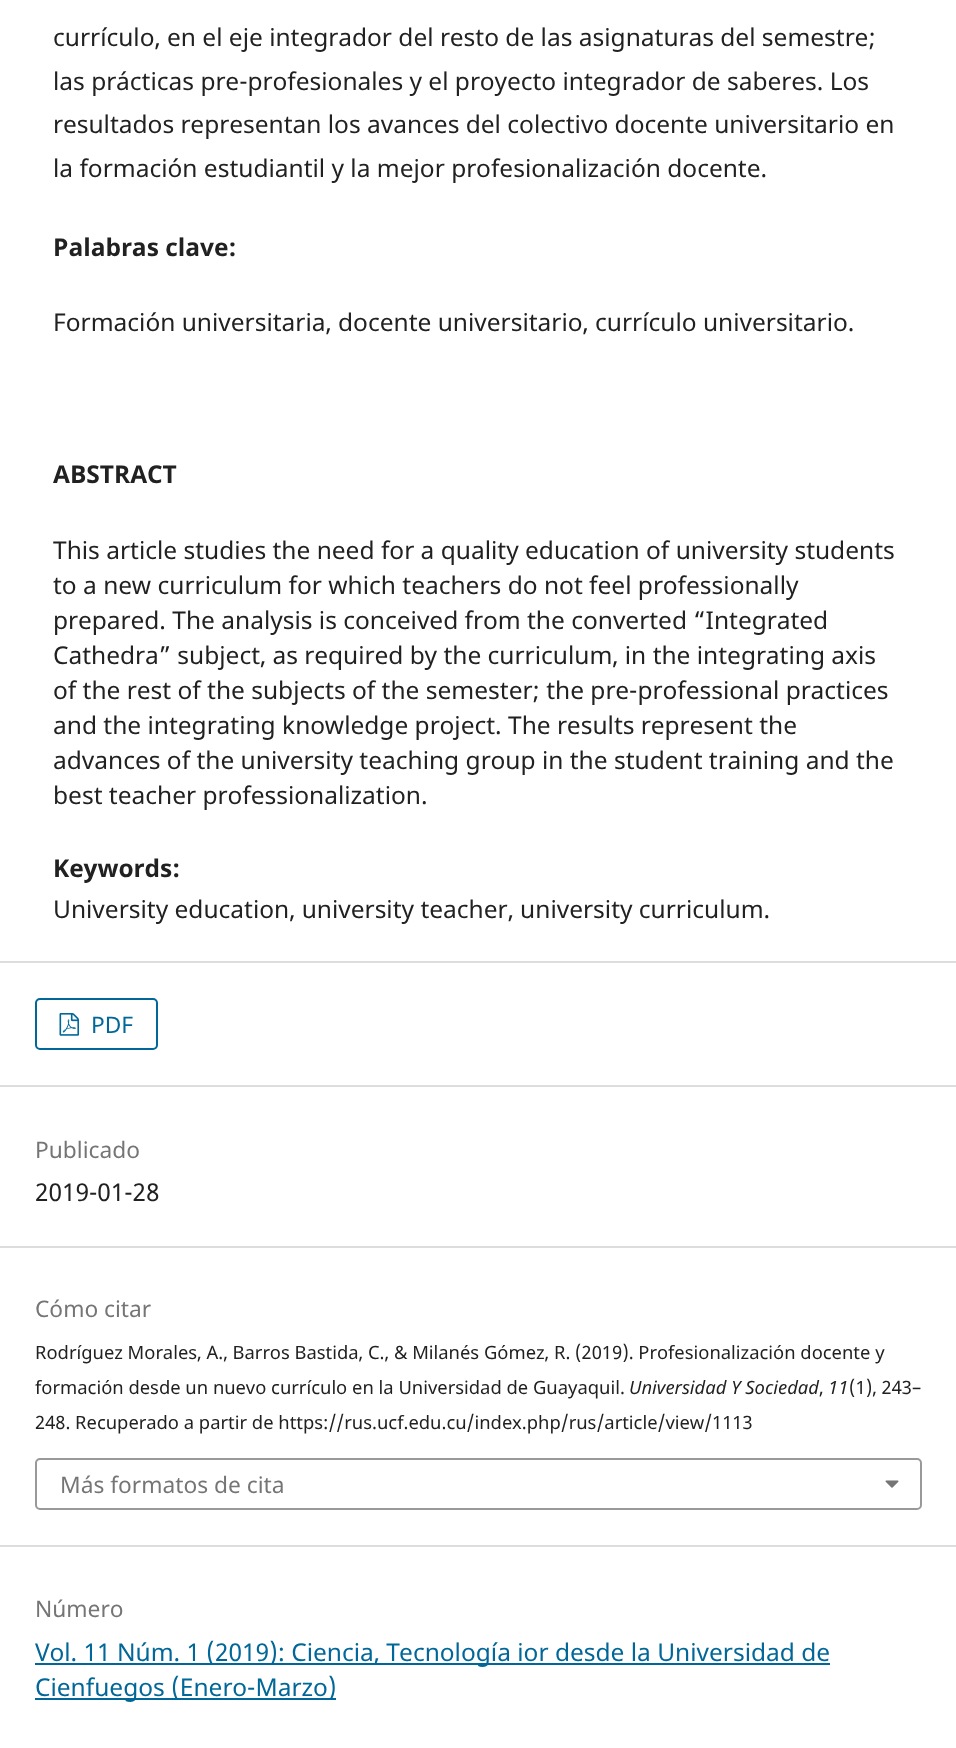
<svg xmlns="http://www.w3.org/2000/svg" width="956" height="1748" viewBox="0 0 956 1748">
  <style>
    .t1 { font: 24.5px Noto Sans; fill: #212121; }
    .t2 { font: bold 24.5px Noto Sans; fill: #212121; }
    .t3 { font: 22.75px Noto Sans; fill: #006798; }
    .t4 { font: 22.75px Noto Sans; fill: #757575; }
    .t5 { font: 18.4px Noto Sans; fill: #212121; }
    .t6 { font: italic 18.4px Noto Sans; fill: #212121; }
    .t7 { font: 24.5px Noto Sans; fill: #006798; }
  </style>
  <rect width="100%" height="100%" fill="#fff"/>
  <text x="53" y="46" class="t1">currículo, en el eje integrador del resto de las asignaturas del semestre;</text>
  <text x="53" y="90" class="t1">las prácticas pre-profesionales y el proyecto integrador de saberes. Los</text>
  <text x="53" y="133" class="t1">resultados representan los avances del colectivo docente universitario en</text>
  <text x="53" y="177" class="t1">la formación estudiantil y la mejor profesionalización docente.</text>
  <text x="53" y="256" class="t2">Palabras clave:</text>
  <text x="53" y="331" class="t1">Formación universitaria, docente universitario, currículo universitario.</text>
  <text x="53" y="483" class="t2">ABSTRACT</text>
  <text x="53" y="559" class="t1">This article studies the need for a quality education of university students</text>
  <text x="53" y="594" class="t1">to a new curriculum for which teachers do not feel professionally</text>
  <text x="53" y="629" class="t1">prepared. The analysis is conceived from the converted “Integrated</text>
  <text x="53" y="664" class="t1">Cathedra” subject, as required by the curriculum, in the integrating axis</text>
  <text x="53" y="699" class="t1">of the rest of the subjects of the semester; the pre-professional practices</text>
  <text x="53" y="734" class="t1">and the integrating knowledge project. The results represent the</text>
  <text x="53" y="769" class="t1">advances of the university teaching group in the student training and the</text>
  <text x="53" y="804" class="t1">best teacher professionalization.</text>
  <text x="53" y="877" class="t2">Keywords:</text>
  <text x="53" y="918" class="t1">University education, university teacher, university curriculum.</text>
  <rect x="0" y="961" width="956" height="2" fill="#ddd"/>
  <rect x="0" y="1085" width="956" height="2" fill="#ddd"/>
  <rect x="36" y="999" width="121" height="50" rx="4" fill="none" stroke="#006798" stroke-width="2"/>
  <image x="59" y="1013" width="21" height="23" href="images/1.png"/>
  <text x="91" y="1033" class="t3">PDF</text>
  <rect x="0" y="1246" width="956" height="2" fill="#ddd"/>
  <text x="35" y="1158" class="t4">Publicado</text>
  <text x="35" y="1201" class="t1">2019-01-28</text>
  <rect x="0" y="1545" width="956" height="2" fill="#ddd"/>
  <text x="35" y="1317" class="t4">Cómo citar</text>
  <text x="35" y="1359" class="t5">Rodríguez Morales, A., Barros Bastida, C., &amp; Milanés Gómez, R. (2019). Profesionalización docente y</text>
  <text x="35" y="1394" class="t5">formación desde un nuevo currículo en la Universidad de Guayaquil.</text>
  <text x="629" y="1394" class="t6">Universidad Y Sociedad</text>
  <text x="819" y="1394" class="t5">,</text>
  <text x="828" y="1394" class="t6">11</text>
  <text x="849" y="1394" class="t5">(1), 243–</text>
  <text x="35" y="1429" class="t5">248. Recuperado a partir de https://rus.ucf.edu.cu/index.php/rus/article/view/1113</text>
  <rect x="36" y="1459" width="885" height="50" rx="4" fill="none" stroke="#999" stroke-width="2"/>
  <text x="60" y="1493" class="t4">Más formatos de cita</text>
  <image x="885" y="1480" width="14" height="8" href="images/2.png"/>
  <text x="35" y="1617" class="t4">Número</text>
  <rect x="35" y="1663" width="795" height="2" fill="#006798"/>
  <text x="35" y="1661" class="t7">Vol. 11 Núm. 1 (2019): Ciencia, Tecnología ior desde la Universidad de</text>
  <rect x="35" y="1698" width="301" height="2" fill="#006798"/>
  <text x="35" y="1696" class="t7">Cienfuegos (Enero-Marzo)</text>
</svg>
